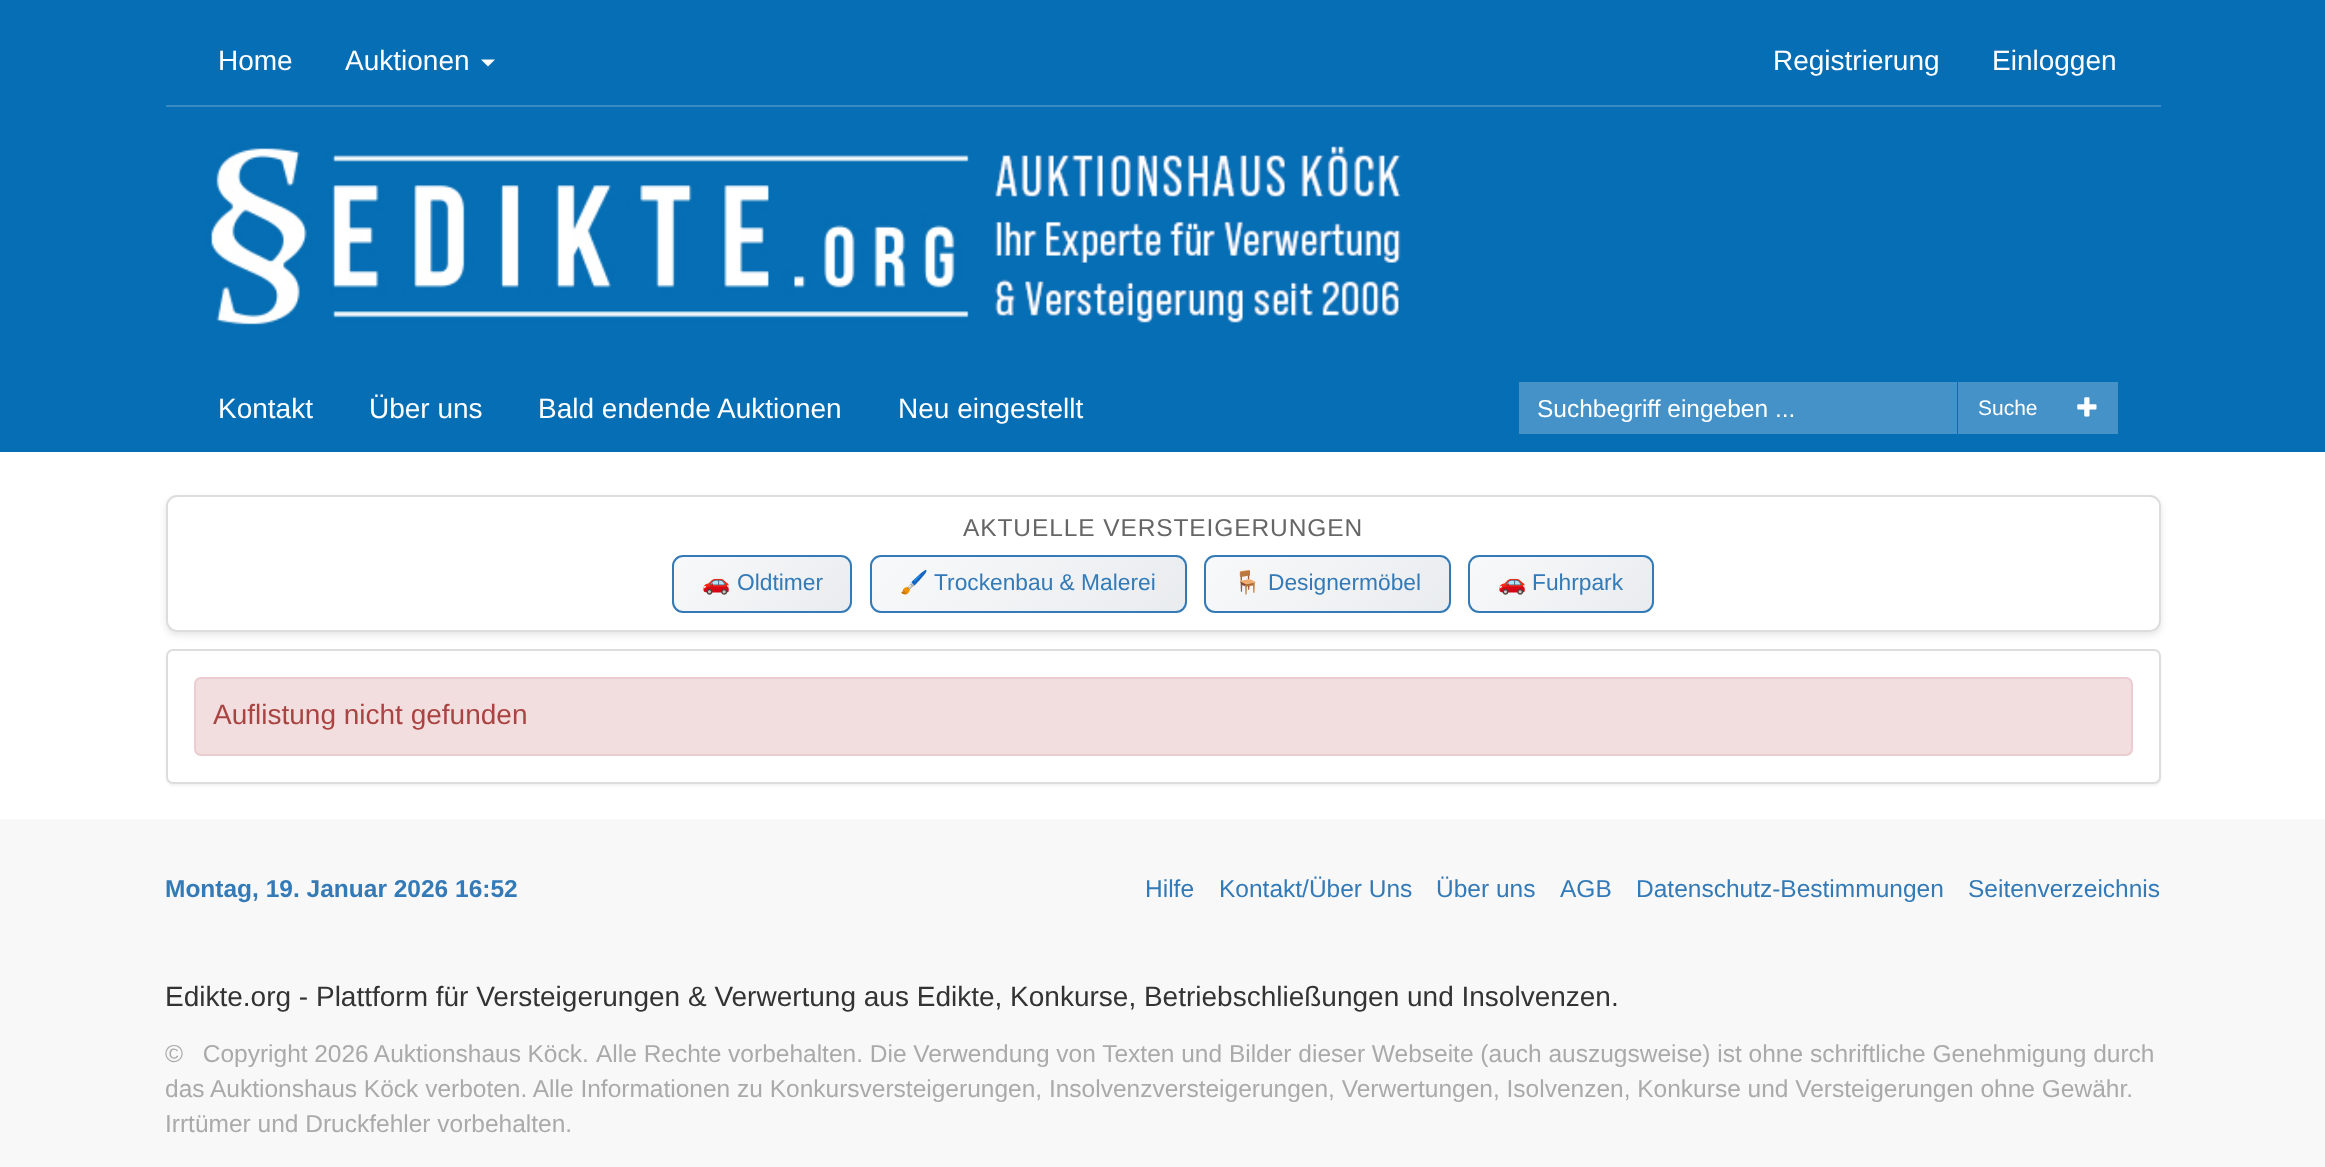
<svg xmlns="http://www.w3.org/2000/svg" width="2325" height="1167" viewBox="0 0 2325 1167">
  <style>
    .t1 { font: 28px Liberation Sans; fill: #fff; }
    .t2 { font: 24.5px Liberation Sans; fill: #fff; }
    .t3 { font: 21px Liberation Sans; fill: #fff; }
    .t4 { font: 24.5px Liberation Sans; letter-spacing: 0.9px; fill: #666; }
    .t5 { font: 22.75px Noto Color Emoji; fill: #337ab7; }
    .t6 { font: 22.75px Liberation Sans; fill: #337ab7; }
    .t7 { font: 28px Liberation Sans; fill: #a94442; }
    .t8 { font: bold 24.5px Liberation Sans; fill: #337ab7; }
    .t9 { font: 24.5px Liberation Sans; fill: #337ab7; }
    .t10 { font: 28px Liberation Sans; fill: #333; }
    .t11 { font: 24.5px Liberation Sans; fill: #aaa; }
  </style>
  <defs>
    <clipPath id="clip1"><path d="M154 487H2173V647H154ZM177 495H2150C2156 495 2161 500 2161 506V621C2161 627 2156 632 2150 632H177C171 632 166 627 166 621V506C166 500 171 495 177 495Z" clip-rule="evenodd"/></clipPath>
    <clipPath id="clip2"><rect x="672" y="555" width="180" height="58" rx="11"/></clipPath>
    <linearGradient id="g1" gradientUnits="userSpaceOnUse" x1="704" y1="526" x2="820" y2="641"><stop offset="0" stop-color="#f8f9fa"/><stop offset="1" stop-color="#e9ecef"/></linearGradient>
    <clipPath id="clip3"><rect x="870" y="555" width="317" height="58" rx="11"/></clipPath>
    <linearGradient id="g2" gradientUnits="userSpaceOnUse" x1="936" y1="492" x2="1120" y2="676"><stop offset="0" stop-color="#f8f9fa"/><stop offset="1" stop-color="#e9ecef"/></linearGradient>
    <clipPath id="clip4"><rect x="1204" y="555" width="247" height="58" rx="11"/></clipPath>
    <linearGradient id="g3" gradientUnits="userSpaceOnUse" x1="1253" y1="509" x2="1402" y2="658"><stop offset="0" stop-color="#f8f9fa"/><stop offset="1" stop-color="#e9ecef"/></linearGradient>
    <clipPath id="clip5"><rect x="1468" y="555" width="186" height="58" rx="11"/></clipPath>
    <linearGradient id="g4" gradientUnits="userSpaceOnUse" x1="1502" y1="525" x2="1620" y2="643"><stop offset="0" stop-color="#f8f9fa"/><stop offset="1" stop-color="#e9ecef"/></linearGradient>
  </defs>
  <rect width="100%" height="100%" fill="#fff"/>
  <rect x="0" y="0" width="2325" height="452" fill="#066eb5"/>
  <rect x="166" y="105" width="1995" height="2" fill="#388bc4"/>
  <text x="218" y="70" class="t1">Home</text>
  <text x="345" y="70" class="t1">Auktionen</text>
  <path d="M481 59.5H495L488 66.5Z" fill="#fff"/>
  <text x="1773" y="70" class="t1">Registrierung</text>
  <text x="1992" y="70" class="t1">Einloggen</text>
  <image x="205" y="144" width="1196" height="181" href="images/1.png"/>
  <text x="218" y="418" class="t1">Kontakt</text>
  <text x="369" y="418" class="t1">Über uns</text>
  <text x="538" y="418" class="t1">Bald endende Auktionen</text>
  <text x="898" y="418" class="t1">Neu eingestellt</text>
  <rect x="1519" y="382" width="438" height="52" fill="#4492c8"/>
  <text x="1537" y="417" class="t2">Suchbegriff eingeben ...</text>
  <rect x="1958" y="382" width="160" height="52" fill="#4492c8"/>
  <text x="1978" y="415" class="t3">Suche</text>
  <image x="2077" y="397" width="20" height="20" href="images/2.png"/>
  <g clip-path="url(#clip1)">
    <rect x="166" y="499" width="1995" height="136" rx="11" fill="#0000001a" filter="blur(3.5px)"/>
  </g>
  <rect x="167" y="496" width="1993" height="135" rx="10" fill="#fffffff2" stroke="#ddd" stroke-width="2"/>
  <text x="963" y="536" class="t4">AKTUELLE VERSTEIGERUNGEN</text>
  <g clip-path="url(#clip2)">
    <rect x="674" y="557" width="177" height="54" fill="url(#g1)"/>
  </g>
  <rect x="673" y="556" width="178" height="56" rx="10" fill="none" stroke="#337ab7" stroke-width="2"/>
  <text x="702" y="590" class="t5">🚗</text>
  <text x="737" y="590" class="t6">Oldtimer</text>
  <g clip-path="url(#clip3)">
    <rect x="872" y="557" width="313" height="54" fill="url(#g2)"/>
  </g>
  <rect x="871" y="556" width="315" height="56" rx="10" fill="none" stroke="#337ab7" stroke-width="2"/>
  <text x="900" y="590" class="t5">🖌️</text>
  <text x="934" y="590" class="t6">Trockenbau &amp; Malerei</text>
  <g clip-path="url(#clip4)">
    <rect x="1206" y="557" width="243" height="54" fill="url(#g3)"/>
  </g>
  <rect x="1205" y="556" width="245" height="56" rx="10" fill="none" stroke="#337ab7" stroke-width="2"/>
  <text x="1233" y="590" class="t5">🪑</text>
  <text x="1268" y="590" class="t6">Designermöbel</text>
  <g clip-path="url(#clip5)">
    <rect x="1470" y="557" width="182" height="54" fill="url(#g4)"/>
  </g>
  <rect x="1469" y="556" width="184" height="56" rx="10" fill="none" stroke="#337ab7" stroke-width="2"/>
  <text x="1498" y="590" class="t5">🚗</text>
  <text x="1532" y="590" class="t6">Fuhrpark</text>
  <rect x="166" y="651" width="1995" height="135" rx="7" fill="#0000000d" filter="blur(1px)"/>
  <rect x="167" y="650" width="1993" height="133" rx="6" fill="#fff" stroke="#ddd" stroke-width="2"/>
  <rect x="195" y="678" width="1937" height="77" rx="6" fill="#f2dede" stroke="#ebccd1" stroke-width="2"/>
  <text x="213" y="724" class="t7">Auflistung nicht gefunden</text>
  <rect x="0" y="819" width="2325" height="348" fill="#f8f8f8"/>
  <text x="165" y="897" class="t8">Montag, 19. Januar 2026 16:52</text>
  <text x="1145" y="897" class="t9">Hilfe</text>
  <text x="1219" y="897" class="t9">Kontakt/Über Uns</text>
  <text x="1436" y="897" class="t9">Über uns</text>
  <text x="1560" y="897" class="t9">AGB</text>
  <text x="1636" y="897" class="t9">Datenschutz-Bestimmungen</text>
  <text x="1968" y="897" class="t9">Seitenverzeichnis</text>
  <text x="165" y="1006" class="t10">Edikte.org - Plattform für Versteigerungen &amp; Verwertung aus Edikte, Konkurse, Betriebschließungen und Insolvenzen.</text>
  <text x="165" y="1062" word-spacing="-0.25" class="t11" xml:space="preserve">©   Copyright 2026 Auktionshaus Köck.</text>
  <text x="596" y="1062" class="t11">Alle Rechte vorbehalten. Die Verwendung von Texten und Bilder dieser Webseite (auch auszugsweise) ist ohne schriftliche Genehmigung durch</text>
  <text x="165" y="1097" class="t11">das Auktionshaus Köck verboten. Alle Informationen zu Konkursversteigerungen, Insolvenzversteigerungen, Verwertungen, Isolvenzen, Konkurse und Versteigerungen ohne Gewähr.</text>
  <text x="165" y="1132" class="t11">Irrtümer und Druckfehler vorbehalten.</text>
</svg>
